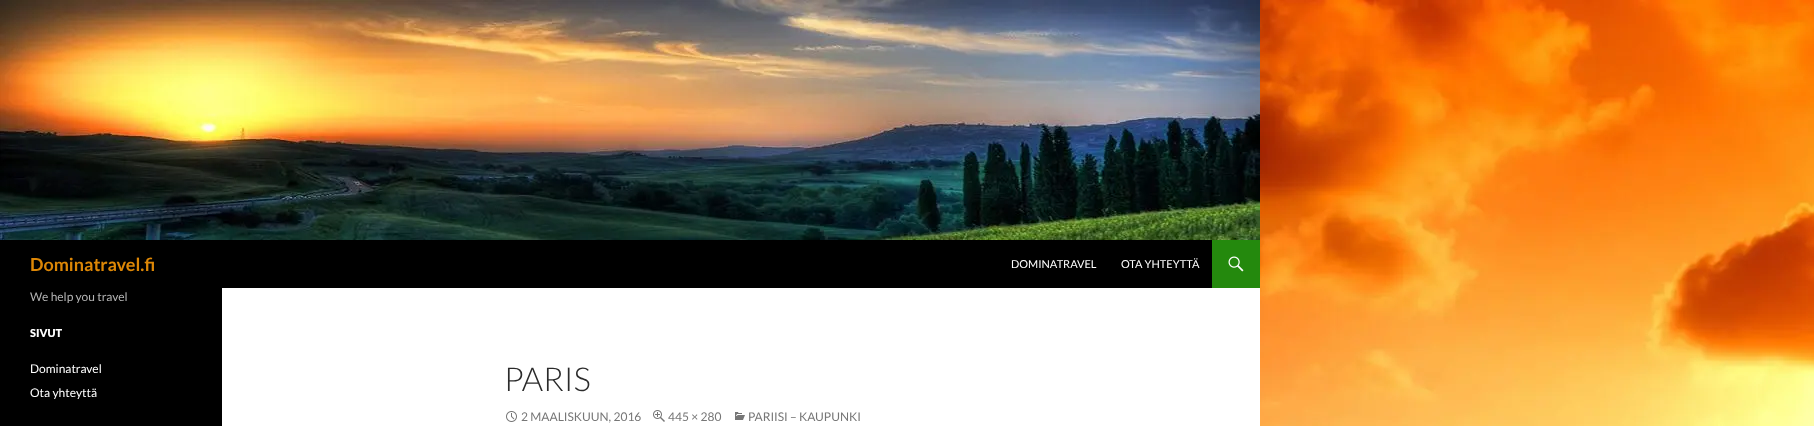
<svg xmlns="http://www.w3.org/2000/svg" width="1814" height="426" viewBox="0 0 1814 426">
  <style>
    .t1 { font: bold 18px Lato; fill: #dd8706; }
    .t2 { font: 11px Lato; fill: #fff; }
    .t3 { font: 12px Lato; fill: #b3b3b3; }
    .t4 { font: 900 11px Lato; fill: #fff; }
    .t5 { font: 12px Lato; fill: #fff; }
    .t6 { font: 300 33px Lato; fill: #2b2b2b; }
    .t7 { font: 12px Lato; fill: #767676; }
  </style>
  <rect width="100%" height="100%" fill="#fff"/>
  <image x="1260" y="0" width="554" height="426" href="images/1.png"/>
  <image x="0" y="0" width="1260" height="240" href="images/2.png"/>
  <rect x="0" y="240" width="1212" height="48" fill="#000"/>
  <text x="30" y="271" class="t1">Dominatravel.fi</text>
  <text x="1011" y="268" class="t2">DOMINATRAVEL</text>
  <text x="1121" y="268" class="t2">OTA YHTEYTTÄ</text>
  <rect x="1212" y="240" width="48" height="48" fill="#24890d"/>
  <image x="1228" y="256" width="16" height="16" href="images/3.png"/>
  <rect x="0" y="288" width="222" height="138" fill="#000"/>
  <text x="30" y="301" class="t3">We help you travel</text>
  <text x="30" y="337" class="t4">SIVUT</text>
  <text x="30" y="373" class="t5">Dominatravel</text>
  <text x="30" y="397" class="t5">Ota yhteyttä</text>
  <text x="504" y="391" class="t6">PARIS</text>
  <image x="506" y="411" width="11" height="11" href="images/4.png"/>
  <text x="521" y="421" class="t7">2 MAALISKUUN, 2016</text>
  <image x="653" y="410" width="12" height="12" href="images/5.png"/>
  <text x="668" y="421" class="t7">445 × 280</text>
  <image x="735" y="412" width="10" height="8" href="images/6.png"/>
  <text x="748" y="421" class="t7">PARIISI – KAUPUNKI</text>
</svg>
